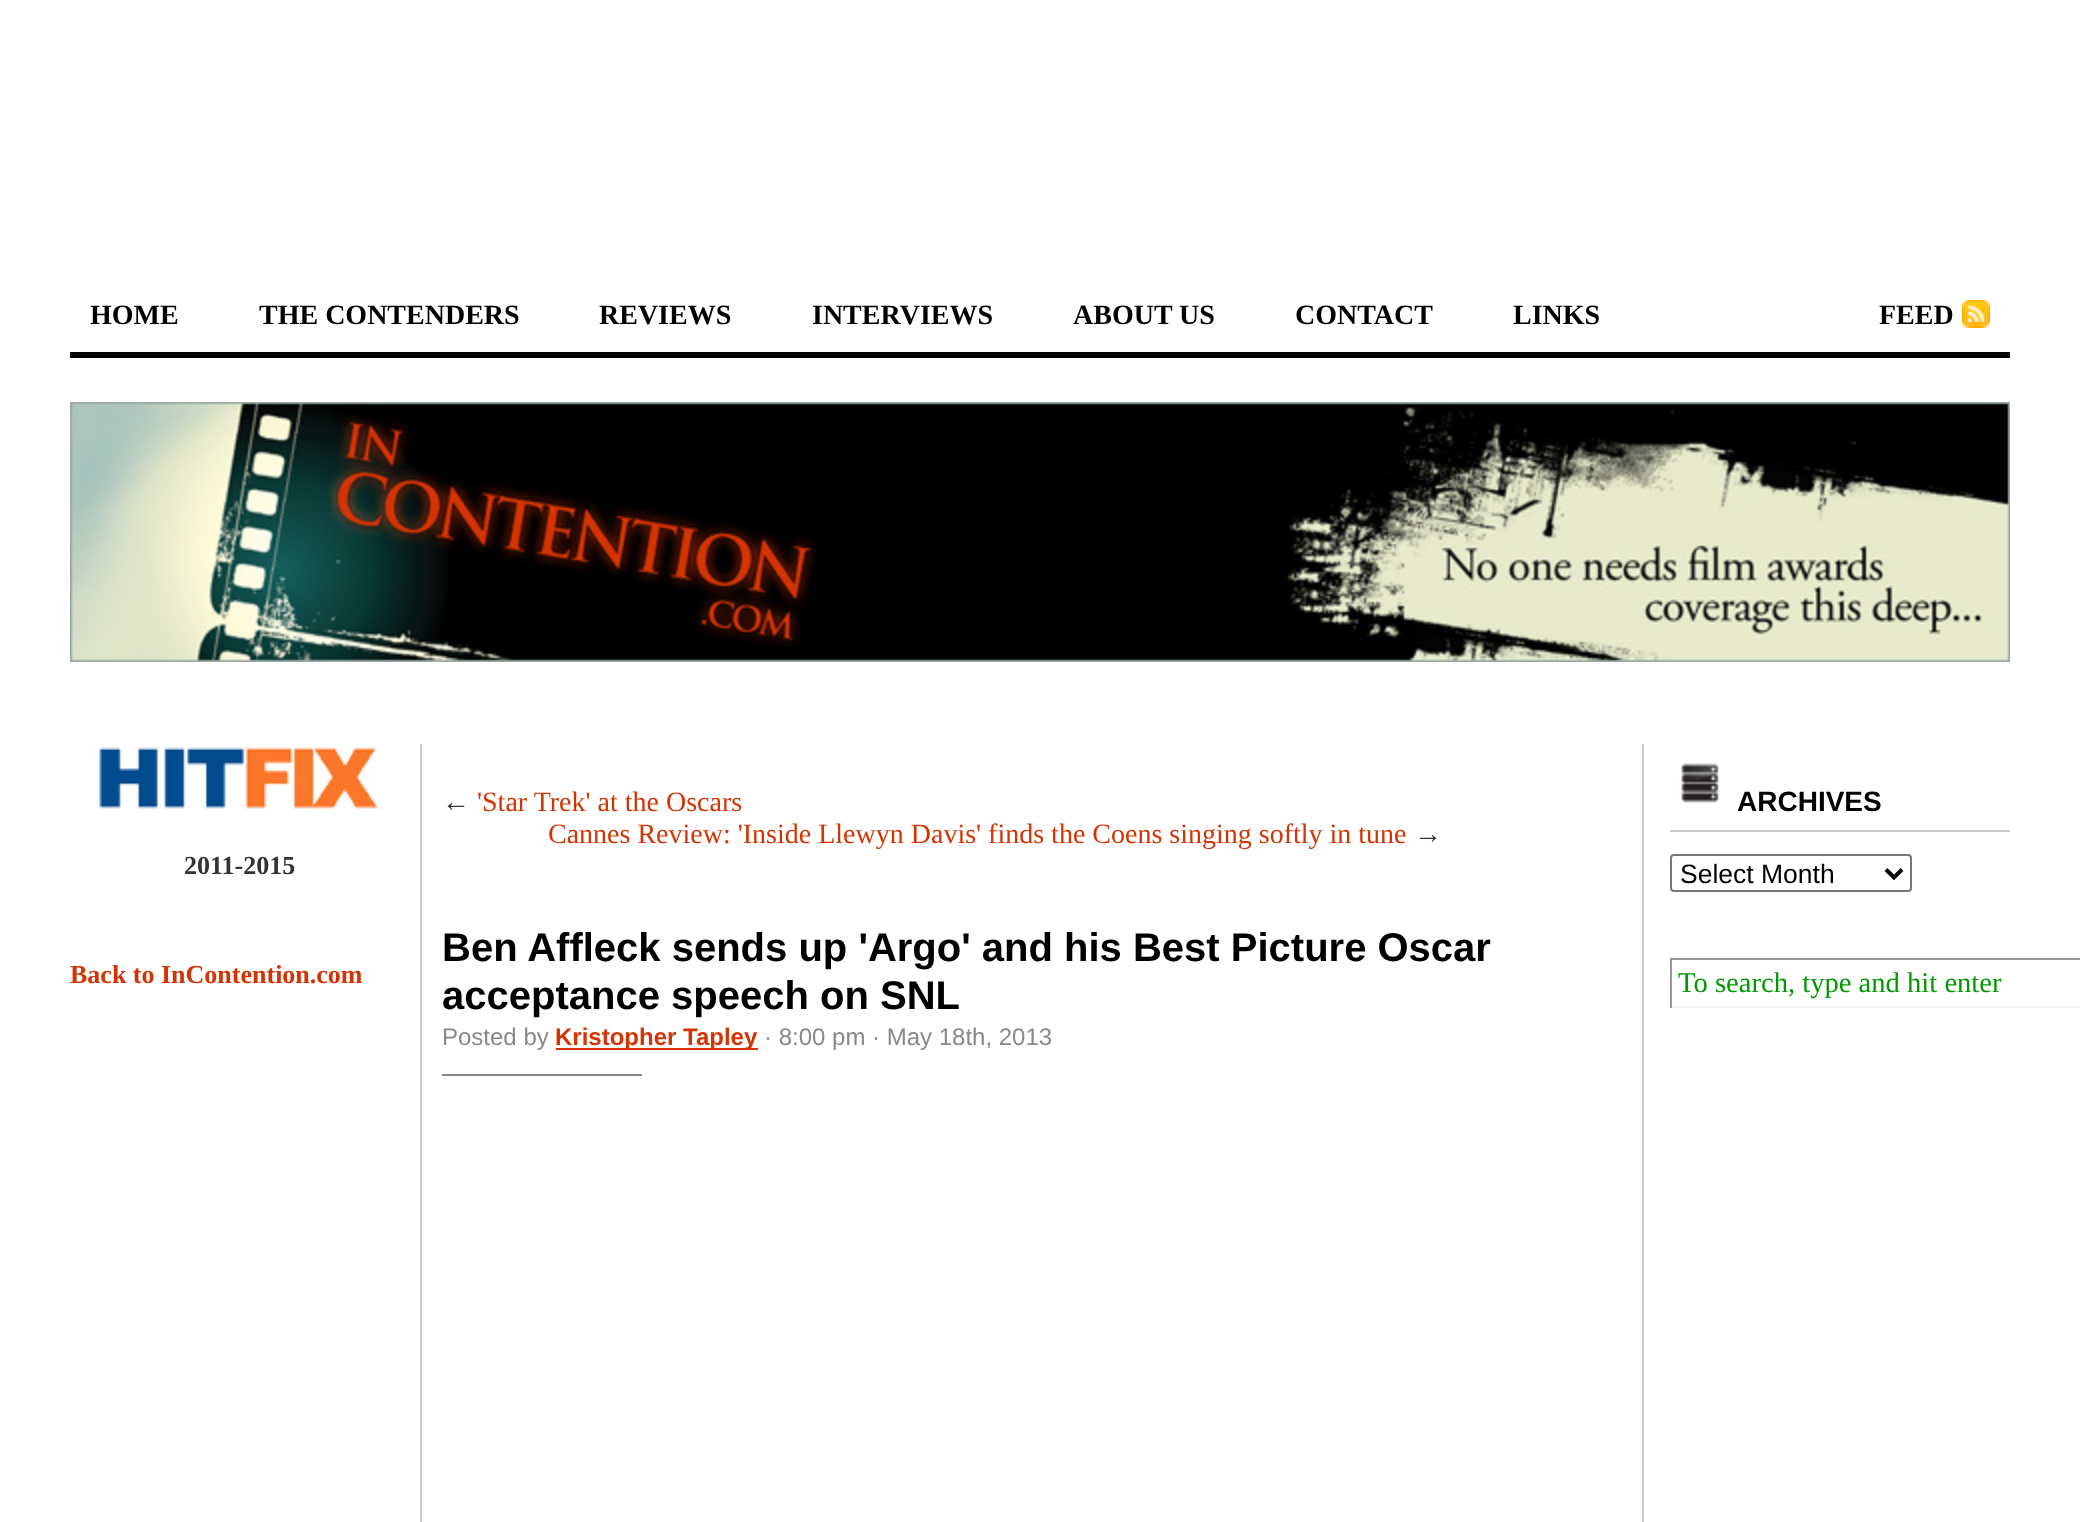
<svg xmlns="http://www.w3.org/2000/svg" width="2080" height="1522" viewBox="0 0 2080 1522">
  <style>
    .t1 { font: bold 28px Liberation Serif; fill: #000; }
    .t2 { font: bold 26px Liberation Serif; fill: #333; }
    .t3 { font: bold 26px Liberation Serif; fill: #d43402; }
    .t4 { font: 28px Liberation Serif; fill: #333; }
    .t5 { font: 28px Liberation Serif; fill: #d43402; }
    .t6 { font: bold 40px Liberation Sans; fill: #000; }
    .t7 { font: 24px Liberation Sans; fill: #888; }
    .t8 { font: bold 24px Liberation Sans; fill: #d43402; }
    .t9 { font: bold 28px Liberation Sans; fill: #000; }
    .t10 { font: 26.5px Liberation Sans; fill: #000; }
    .t11 { font: 28.6px Liberation Serif; fill: #090; }
  </style>
  <rect width="100%" height="100%" fill="#fff"/>
  <rect x="70" y="352" width="1940" height="6" fill="#000"/>
  <text x="90" y="324" class="t1">HOME</text>
  <text x="259" y="324" class="t1">THE CONTENDERS</text>
  <text x="599" y="324" class="t1">REVIEWS</text>
  <text x="812" y="324" class="t1">INTERVIEWS</text>
  <text x="1073" y="324" class="t1">ABOUT US</text>
  <text x="1295" y="324" class="t1">CONTACT</text>
  <text x="1513" y="324" class="t1">LINKS</text>
  <text x="1879" y="324" class="t1">FEED</text>
  <image x="1962" y="300" width="28" height="28" href="images/1.png"/>
  <image x="70" y="402" width="1940" height="260" href="images/2.png"/>
  <image x="90" y="744" width="296" height="66" href="images/3.png"/>
  <text x="184" y="874" class="t2">2011-2015</text>
  <text x="70" y="983" class="t3">Back to InContention.com</text>
  <rect x="1642" y="744" width="2" height="778" fill="#ccc"/>
  <rect x="420" y="744" width="2" height="778" fill="#ccc"/>
  <text x="442" y="811" class="t4">←</text>
  <text x="477" y="811" class="t5">'Star Trek' at the Oscars</text>
  <text x="548" y="843" class="t5">Cannes Review: 'Inside Llewyn Davis' finds the Coens singing softly in tune</text>
  <text x="1414" y="843" class="t4">→</text>
  <text x="442" y="961" class="t6">Ben Affleck sends up 'Argo' and his Best Picture Oscar</text>
  <text x="442" y="1009" class="t6">acceptance speech on SNL</text>
  <rect x="442" y="1074" width="200" height="2" fill="#888"/>
  <text x="442" y="1045" class="t7">Posted by</text>
  <rect x="556" y="1048" width="202" height="2" fill="#d43402"/>
  <text x="555" y="1045" class="t8">Kristopher Tapley</text>
  <text x="764" y="1045" class="t7">· 8:00 pm · May 18th, 2013</text>
  <rect x="1670" y="830" width="340" height="2" fill="#ccc"/>
  <image x="1681" y="763" width="38" height="40" href="images/4.png"/>
  <text x="1737" y="811" class="t9">ARCHIVES</text>
  <rect x="1671" y="855" width="240" height="36" rx="3" fill="none" stroke="#767676" stroke-width="2"/>
  <path d="M1886 869.5L1894 877.5L1902 869.5" fill="none" stroke="#000" stroke-width="4"/>
  <text x="1680" y="883" class="t10">Select Month</text>
  <rect x="1670" y="958" width="410" height="2" fill="#999"/>
  <rect x="1670" y="1006" width="410" height="2" fill="#f5f5f5"/>
  <rect x="1670" y="958" width="2" height="50" fill="#999"/>
  <text x="1678" y="992" class="t11">To search, type and hit enter</text>
</svg>
